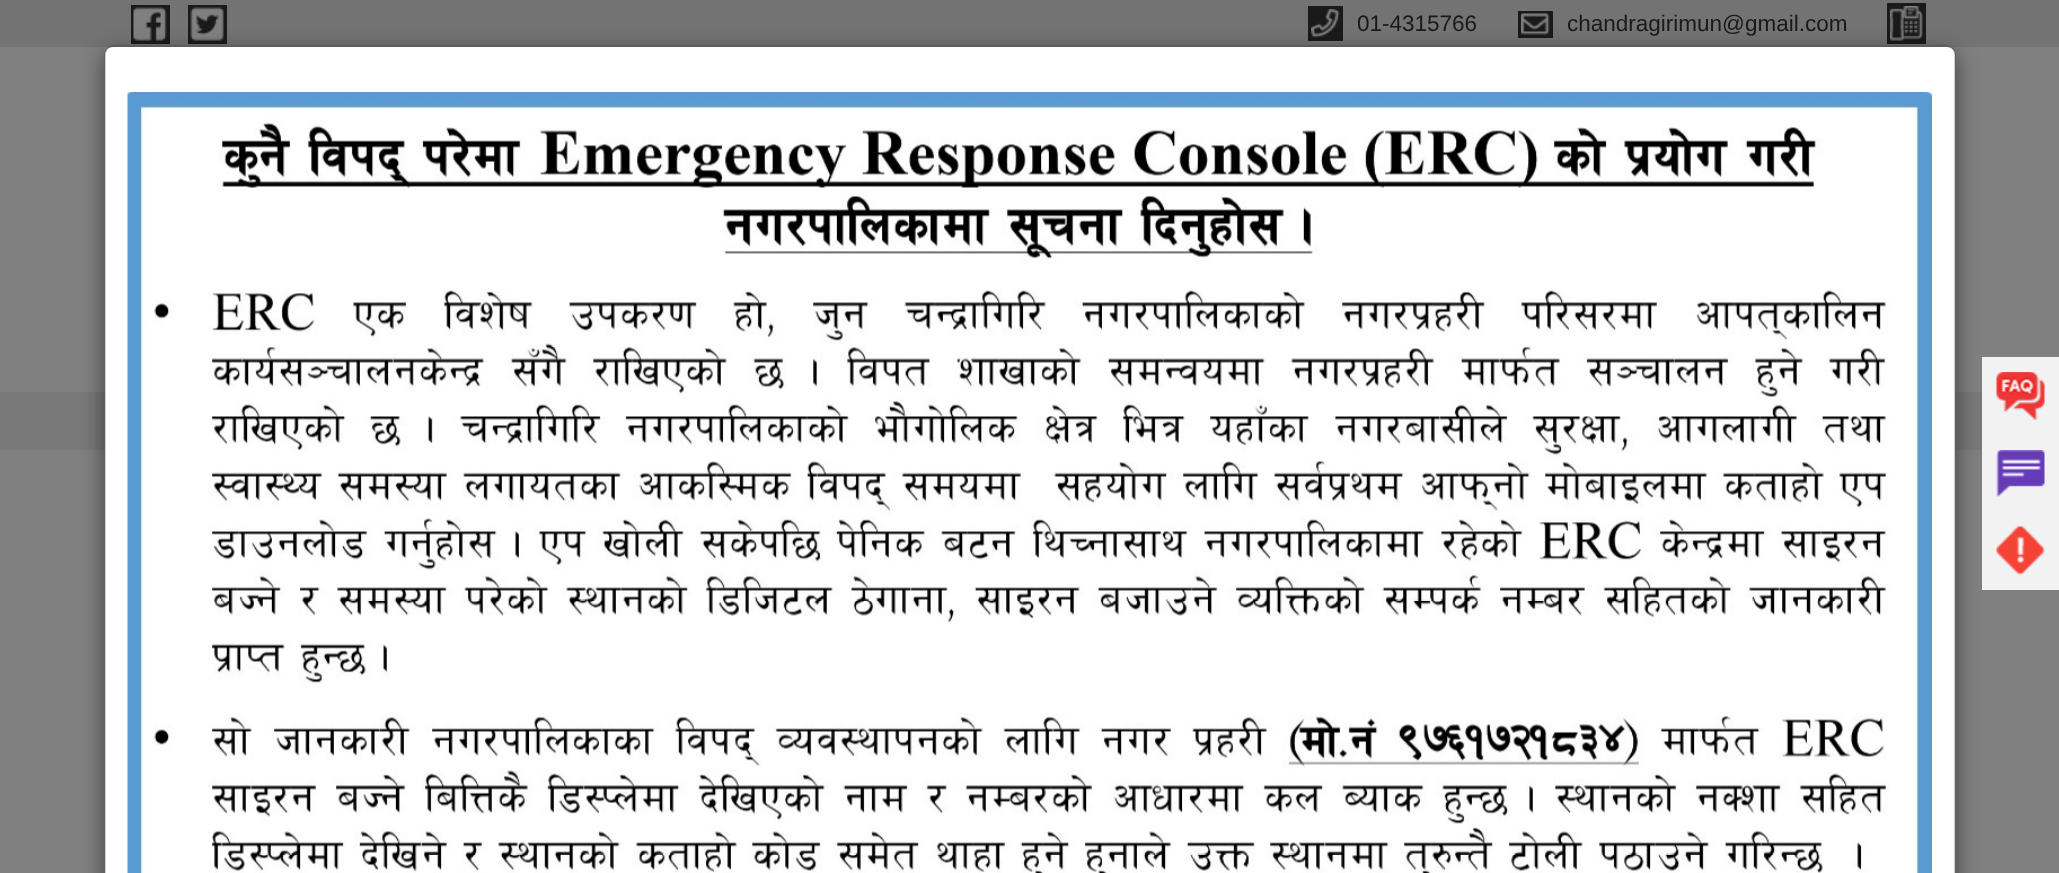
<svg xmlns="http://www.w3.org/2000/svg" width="2059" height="873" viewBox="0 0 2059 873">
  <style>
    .t1 { font: 22.5px Liberation Sans; fill: #1a1a1a; }
  </style>
  <defs>
    <clipPath id="clip1"><path d="M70 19H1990V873H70ZM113 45H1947C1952 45 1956 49 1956 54V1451C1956 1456 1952 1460 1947 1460H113C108 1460 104 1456 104 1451V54C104 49 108 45 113 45Z" clip-rule="evenodd"/></clipPath>
  </defs>
  <rect width="100%" height="100%" fill="#808080"/>
  <rect x="0" y="0" width="2059" height="47" fill="#747373"/>
  <rect x="131" y="5" width="39" height="39" fill="#1a1a1a"/>
  <rect x="188" y="5" width="39" height="39" fill="#1a1a1a"/>
  <image x="133" y="7" width="34" height="34" href="images/1.png"/>
  <image x="190" y="7" width="34" height="34" href="images/2.png"/>
  <rect x="1887" y="3" width="39" height="41" fill="#1a1a1a"/>
  <rect x="1308" y="6" width="35" height="35" fill="#1a1a1a"/>
  <image x="1311" y="9" width="29" height="29" href="images/3.png"/>
  <text x="1357" y="31" class="t1">01-4315766</text>
  <rect x="1518" y="11" width="35" height="27" fill="#1a1a1a"/>
  <image x="1521" y="13" width="29" height="22" href="images/4.png"/>
  <text x="1567" y="31" class="t1">chandragirimun@gmail.com</text>
  <image x="1890" y="6" width="33" height="35" href="images/5.png"/>
  <rect x="0" y="392" width="1982" height="58" fill="#797979"/>
  <g clip-path="url(#clip1)">
    <rect x="104" y="53" width="1852" height="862" rx="9" fill="#00000080" filter="blur(11px)"/>
  </g>
  <path d="M113 47H1947C1951.5 47 1955 50.5 1955 55V873H105V55C105 50.5 108.5 47 113 47Z" fill="#fff"/>
  <rect x="105" y="46" width="1850" height="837" rx="8" fill="none" stroke="#00000033" stroke-width="2"/>
  <image x="127" y="92" width="1805" height="781" href="images/6.png"/>
  <rect x="1982" y="357" width="77" height="233" fill="#f2f2f2"/>
  <image x="1996" y="372" width="49" height="48" href="images/7.png"/>
  <image x="1996" y="450" width="49" height="47" href="images/8.png"/>
  <image x="1996" y="526" width="49" height="49" href="images/9.png"/>
</svg>
